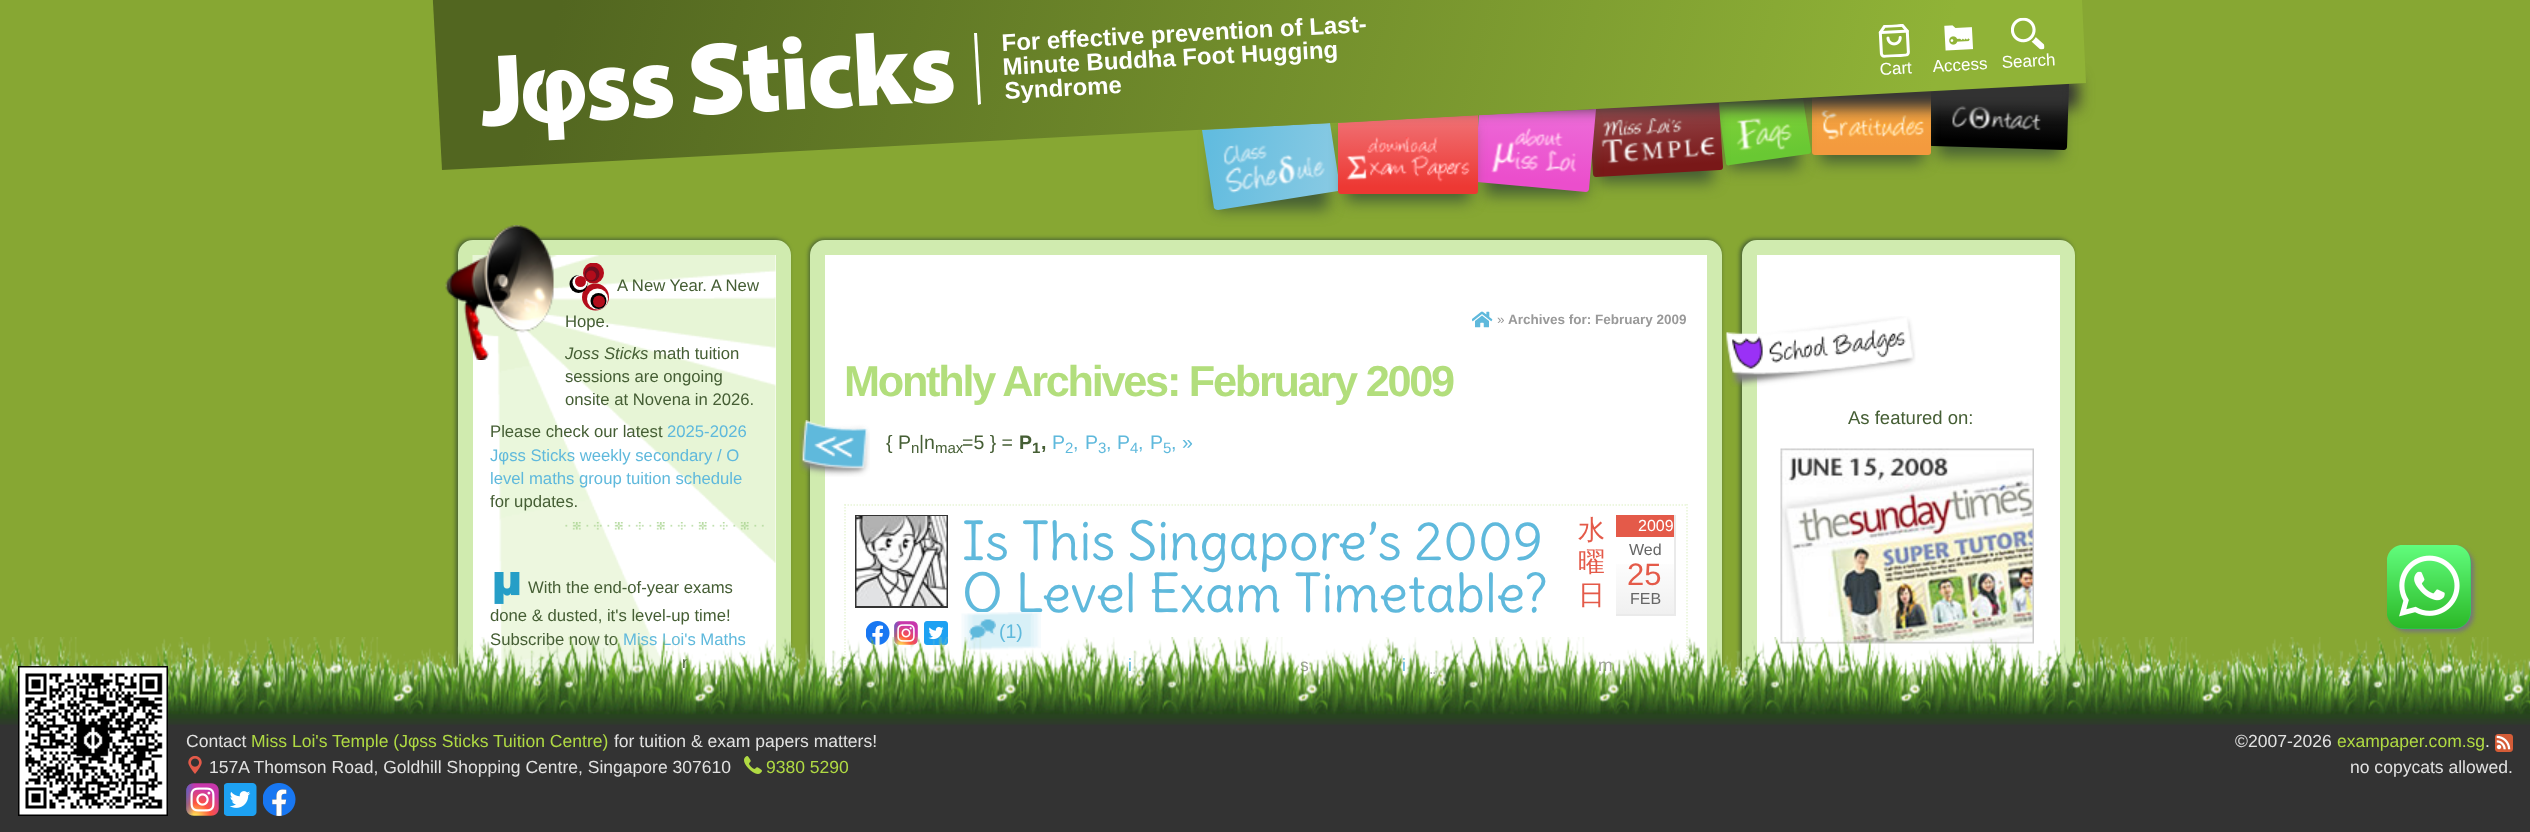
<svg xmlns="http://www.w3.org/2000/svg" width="2530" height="832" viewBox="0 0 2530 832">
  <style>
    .t1 { font: bold 24px Liberation Sans; fill: #fff; }
    .t2 { font: 17px Liberation Sans; fill: #fff; }
    .t3 { font: 16.7px Liberation Sans; fill: #455e34; }
    .t4 { font: italic 16.7px Liberation Sans; fill: #455e34; }
    .t5 { font: 16.7px Liberation Sans; fill: #5fb9dc; }
    .t6 { font: 13.5px Liberation Sans; fill: #999; }
    .t7 { font: bold 13.5px Liberation Sans; fill: #999; }
    .t8 { font: bold 43.25px Liberation Sans; letter-spacing: -2.25px; fill: #b2de7c; }
    .t9 { font: 19.5px Liberation Sans; fill: #455e34; }
    .t10 { font: 15px Liberation Sans; fill: #455e34; }
    .t11 { font: bold 19.5px Liberation Sans; fill: #455e34; }
    .t12 { font: bold 15px Liberation Sans; fill: #455e34; }
    .t13 { font: 19.5px Liberation Sans; fill: #5fb9dc; }
    .t14 { font: 15px Liberation Sans; fill: #5fb9dc; }
    .t15 { font: 52.75px Delius; fill: #5fb9dc; }
    .t16 { font: 500 27px WenQuanYi Zen Hei; fill: #e45a49; }
    .t17 { font: 16px Liberation Sans; fill: #fff; }
    .t18 { font: 16px Liberation Sans; fill: #666; }
    .t19 { font: 31px Liberation Sans; fill: #e45a49; }
    .t20 { font: 17.55px Liberation Sans; fill: #5fb9dc; }
    .t21 { font: 17.55px Liberation Sans; fill: #9f9f9f; }
    .t22 { font: 18.5px Liberation Sans; fill: #455e34; }
    .t23 { font: 17.55px Liberation Sans; fill: #e2e2e2; }
    .t24 { font: 17.55px Liberation Sans; fill: #b0da43; }
  </style>
  <defs>
    <linearGradient id="g1" gradientUnits="userSpaceOnUse" x1="1197" y1="144" x2="1345" y2="169"><stop offset="0.08" stop-color="#62bcdf"/><stop offset="0.91" stop-color="#86c9e3"/></linearGradient>
    <linearGradient id="g2" gradientUnits="userSpaceOnUse" x1="1998" y1="148" x2="2001" y2="65"><stop offset="0.08" stop-color="#000"/><stop offset="0.91" stop-color="#373737"/></linearGradient>
    <linearGradient id="g3" gradientUnits="userSpaceOnUse" x1="1872" y1="155" x2="1872" y2="72"><stop offset="0.08" stop-color="#f39a3e"/><stop offset="0.91" stop-color="#f5aa41"/></linearGradient>
    <linearGradient id="g4" gradientUnits="userSpaceOnUse" x1="1769" y1="160" x2="1757" y2="78"><stop offset="0.08" stop-color="#69c833"/><stop offset="0.91" stop-color="#88d53b"/></linearGradient>
    <linearGradient id="g5" gradientUnits="userSpaceOnUse" x1="1658" y1="173" x2="1653" y2="84"><stop offset="0.08" stop-color="#791818"/><stop offset="0.91" stop-color="#9b5357"/></linearGradient>
    <linearGradient id="g6" gradientUnits="userSpaceOnUse" x1="1531" y1="187" x2="1539" y2="98"><stop offset="0.08" stop-color="#eb4ecc"/><stop offset="0.91" stop-color="#ed6dd9"/></linearGradient>
    <linearGradient id="g7" gradientUnits="userSpaceOnUse" x1="1407" y1="194" x2="1407" y2="104"><stop offset="0.08" stop-color="#ed3833"/><stop offset="0.91" stop-color="#f07579"/></linearGradient>
    <linearGradient id="g8" gradientUnits="userSpaceOnUse" x1="480" y1="-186" x2="2039" y2="253"><stop offset="0.08" stop-color="#526620"/><stop offset="0.91" stop-color="#90b337"/></linearGradient>
    <clipPath id="clip1"><rect x="566" y="263" width="48" height="48"/></clipPath>
    <linearGradient id="g9" gradientUnits="userSpaceOnUse" x1="1645" y1="614" x2="1645" y2="515"><stop offset="0" stop-color="#f0f0f0"/><stop offset="0.6" stop-color="#fff"/></linearGradient>
  </defs>
  <rect width="100%" height="100%" fill="#87a733"/>
  <rect x="1215" y="134" width="113" height="75" fill="#455e34" filter="blur(7.5px)"/>
  <path d="M1202 130L1330 123L1340 188C1341 189 1340 191 1338 191L1218 210C1216 210 1215 209 1214 208Z" fill="url(#g1)"/>
  <image x="1223" y="144" width="102" height="49" href="images/5.png"/>
  <rect x="1938" y="89" width="123" height="67" fill="#455e34" filter="blur(7.5px)"/>
  <path d="M2069 84L2067 147C2067 149 2065 150 2064 150L1932 146C1930 146 1929 144 1929 142L1930 92Z" fill="url(#g2)"/>
  <rect x="1820" y="95" width="103" height="67" fill="#455e34" filter="blur(7.5px)"/>
  <path d="M1931 91V152C1931 154 1930 155 1928 155H1815C1813 155 1812 154 1812 152V98Z" fill="url(#g3)"/>
  <image x="1821" y="110" width="103" height="30" href="images/10.png"/>
  <rect x="1728" y="101" width="71" height="67" fill="#455e34" filter="blur(7.5px)"/>
  <path d="M1803 98L1811 151C1811 153 1810 154 1808 154L1730 165C1728 166 1726 165 1726 163L1718 103Z" fill="url(#g4)"/>
  <image x="1736" y="117" width="56" height="34" href="images/9.png"/>
  <rect x="1598" y="107" width="115" height="75" fill="#455e34" filter="blur(7.5px)"/>
  <path d="M1719 103L1723 167C1723 169 1722 170 1720 170L1596 177C1594 177 1593 175 1593 174L1589 109Z" fill="url(#g5)"/>
  <image x="1601" y="118" width="115" height="46" href="images/8.png"/>
  <rect x="1485" y="120" width="101" height="75" fill="#455e34" filter="blur(7.5px)"/>
  <path d="M1479 115L1596 109L1589 189C1589 191 1587 192 1586 192L1477 182C1475 182 1474 181 1474 179Z" fill="url(#g6)"/>
  <image x="1491" y="128" width="86" height="45" href="images/7.png"/>
  <rect x="1346" y="126" width="124" height="75" fill="#455e34" filter="blur(7.5px)"/>
  <path d="M1338 123L1478 115V191C1478 193 1477 194 1475 194H1341C1339 194 1338 193 1338 191Z" fill="url(#g7)"/>
  <image x="1951" y="105" width="90" height="26" href="images/11.png"/>
  <rect x="1178" y="78" width="900" height="30" fill="#333" filter="blur(7.5px)"/>
  <image x="1346" y="137" width="124" height="45" href="images/6.png"/>
  <path d="M432-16L2077-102L2086 83L442 170Z" fill="url(#g8)"/>
  <image x="482" y="32" width="472" height="109" href="images/1.png"/>
  <path d="M974 33H977L981 104L978 105Z" fill="#fff"/>
  <text x="1002" y="51" transform="rotate(-3 1002 51)" class="t1">For effective prevention of Last-</text>
  <text x="1003" y="75" transform="rotate(-3 1003 75)" class="t1">Minute Buddha Foot Hugging</text>
  <text x="1005" y="99" transform="rotate(-3 1005 99)" class="t1">Syndrome</text>
  <image x="1878" y="24" width="32" height="34" href="images/2.png"/>
  <text x="1880" y="75" transform="rotate(-3 1880 75)" class="t2">Cart</text>
  <image x="1944" y="25" width="29" height="26" href="images/3.png"/>
  <text x="1933" y="72" transform="rotate(-3 1933 72)" class="t2">Access</text>
  <image x="2011" y="17" width="34" height="33" href="images/4.png"/>
  <text x="2002" y="68" transform="rotate(-3 2002 68)" class="t2">Search</text>
  <rect x="456" y="239" width="333" height="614" rx="15" fill="#455e34" filter="blur(2px)"/>
  <rect x="465.5" y="247.5" width="318" height="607" rx="7.5" fill="#fff" stroke="#d0ebaf" stroke-width="15"/>
  <image x="472" y="255" width="304" height="424" href="images/12.png"/>
  <image x="445" y="225" width="109" height="135" href="images/13.png"/>
  <circle cx="595.5" cy="297" r="13.5" fill="#b30c1b"/>
  <circle cx="597.5" cy="299" r="10.5" fill="#fff"/>
  <circle cx="578.5" cy="284" r="9" fill="#000"/>
  <circle cx="580" cy="282.5" r="7.5" fill="#fff"/>
  <circle cx="580.5" cy="281.5" r="5.5" fill="#b30c1b"/>
  <g clip-path="url(#clip1)">
    <circle cx="593.5" cy="273" r="10.5" fill="#b30c1b"/>
  </g>
  <circle cx="592" cy="274" r="7.5" fill="#6c0e1f"/>
  <circle cx="591" cy="275.5" r="5" fill="#b30c1b"/>
  <text x="617" y="291" class="t3">A New Year. A New</text>
  <circle cx="598.5" cy="301" r="8" fill="#000"/>
  <circle cx="599" cy="301.5" r="6" fill="#b30c1b"/>
  <text x="565" y="327" class="t3">Hope.</text>
  <text x="565" y="359" class="t4">Joss Sticks</text>
  <text x="653" y="359" class="t3">math tuition</text>
  <text x="565" y="382" class="t3">sessions are ongoing</text>
  <text x="565" y="405" class="t3">onsite at Novena in 2026.</text>
  <text x="490" y="437" class="t3">Please check our latest</text>
  <text x="667" y="437" class="t5">2025-2026</text>
  <text x="490" y="461" class="t5">Jφss Sticks weekly secondary / O</text>
  <text x="490" y="484" class="t5">level maths group tuition schedule</text>
  <text x="490" y="507" class="t3">for updates.</text>
  <image x="565" y="522" width="199" height="8" href="images/14.png"/>
  <image x="494" y="572" width="26" height="32" href="images/15.png"/>
  <text x="528" y="593" class="t3">With the end-of-year exams</text>
  <text x="490" y="621" class="t3">done &amp; dusted, it's level-up time!</text>
  <text x="490" y="645" class="t3">Subscribe now to</text>
  <text x="623" y="645" class="t5">Miss Loi's Maths</text>
  <text x="682" y="668" class="t3">r</text>
  <rect x="809" y="239" width="912" height="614" rx="15" fill="#455e34" filter="blur(2px)"/>
  <rect x="817.5" y="247.5" width="897" height="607" rx="7.5" fill="#fff" stroke="#d0ebaf" stroke-width="15"/>
  <image x="1472" y="311" width="21" height="17" href="images/16.png"/>
  <text x="1497" y="324" class="t6">»</text>
  <text x="1508" y="324" class="t7">Archives for: February 2009</text>
  <text x="844" y="396" class="t8">Monthly Archives: February 2009</text>
  <image x="799" y="420" width="71" height="57" href="images/17.png"/>
  <text x="886" y="449" class="t9">{ P</text>
  <text x="911" y="453" class="t10">n</text>
  <text x="919" y="449" class="t9">|n</text>
  <text x="935" y="453" class="t10">max</text>
  <text x="962" y="449" class="t9">=5 } =</text>
  <text x="1019" y="449" class="t11">P</text>
  <text x="1032" y="453" class="t12">1</text>
  <text x="1041" y="449" class="t11">,</text>
  <text x="1052" y="449" class="t13">P</text>
  <text x="1065" y="453" class="t14">2</text>
  <text x="1073" y="449" class="t13">,</text>
  <text x="1085" y="449" class="t13">P</text>
  <text x="1098" y="453" class="t14">3</text>
  <text x="1106" y="449" class="t13">,</text>
  <text x="1117" y="449" class="t13">P</text>
  <text x="1130" y="453" class="t14">4</text>
  <text x="1138" y="449" class="t13">,</text>
  <text x="1150" y="449" class="t13">P</text>
  <text x="1163" y="453" class="t14">5</text>
  <text x="1171" y="449" class="t13">,</text>
  <text x="1182" y="449" class="t13">»</text>
  <path d="M844.5 505H1687.5" fill="none" stroke="#e7f5d6" stroke-width="1.5" stroke-dasharray="1.5 1.5"/>
  <path d="M1687 504V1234.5" fill="none" stroke="#e7f5d6" stroke-width="1.5" stroke-dasharray="1.5 1.5"/>
  <path d="M845 504V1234.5" fill="none" stroke="#e7f5d6" stroke-width="1.5" stroke-dasharray="1.5 1.5"/>
  <rect x="856" y="516" width="91" height="91" fill="none" stroke="#333" stroke-width="2"/>
  <image x="856" y="516" width="91" height="90" href="images/18.png"/>
  <image x="866" y="621" width="24" height="24" href="images/19.png"/>
  <image x="894" y="621" width="24" height="24" href="images/20.png"/>
  <image x="924" y="621" width="24" height="24" href="images/21.png"/>
  <text x="962" y="560" class="t15">Is This Singapore’s 2009</text>
  <text x="1578" y="539" class="t16">水</text>
  <text x="1578" y="571" class="t16">曜</text>
  <text x="1578" y="604" class="t16">日</text>
  <rect x="1616" y="564" width="58" height="50" fill="url(#g9)"/>
  <rect x="1674" y="515" width="2" height="100" fill="#eaeaea"/>
  <rect x="1616" y="614" width="60" height="2" fill="#eaeaea"/>
  <rect x="1616" y="515" width="58" height="22" fill="#e45a49"/>
  <text x="1638" y="531" class="t17">2009</text>
  <text x="1629" y="555" class="t18">Wed</text>
  <text x="1627" y="585" class="t19">25</text>
  <text x="1630" y="604" class="t18">FEB</text>
  <text x="962" y="612" class="t15">O Level Exam Timetable?</text>
  <image x="961" y="612" width="80" height="38" href="images/22.png"/>
  <image x="969" y="619" width="27" height="22" href="images/23.png"/>
  <text x="999" y="638" class="t13">(1)</text>
  <text x="1128" y="671" class="t20">i</text>
  <text x="1300" y="671" class="t21">s</text>
  <text x="1402" y="671" class="t20">i</text>
  <text x="1598" y="671" class="t21">m</text>
  <path d="M1430.5 673H1493.5" fill="none" stroke="#9f9f9f" stroke-width="1.5" stroke-dasharray="1.5 1.5"/>
  <image x="1016" y="678" width="606" height="6" href="images/24.png"/>
  <rect x="1740" y="239" width="333" height="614" rx="15" fill="#455e34" filter="blur(2px)"/>
  <rect x="1749.5" y="247.5" width="318" height="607" rx="7.5" fill="#fff" stroke="#d0ebaf" stroke-width="15"/>
  <image x="1725" y="316" width="191" height="71" href="images/25.png"/>
  <text x="1848" y="424" class="t22">As featured on:</text>
  <image x="1780" y="448" width="254" height="196" href="images/26.png"/>
  <image x="1921" y="677" width="113" height="8" href="images/27.png"/>
  <image x="0" y="637" width="2530" height="195" href="images/28.png"/>
  <rect x="2390" y="548" width="84" height="84" rx="18" fill="#777" filter="blur(2px)"/>
  <rect x="2387" y="545" width="84" height="84" rx="18" fill="#25d366"/>
  <image x="2387" y="545" width="84" height="84" href="images/29.png"/>
  <rect x="19" y="667" width="148" height="148" fill="none" stroke="#000" stroke-width="2"/>
  <image x="19" y="667" width="148" height="148" href="images/30.png"/>
  <text x="186" y="747" class="t23">Contact</text>
  <text x="251" y="747" class="t24">Miss Loi's Temple (Jφss Sticks Tuition Centre)</text>
  <text x="614" y="747" class="t23">for tuition &amp; exam papers matters!</text>
  <image x="188" y="756" width="14" height="18" href="images/31.png"/>
  <text x="209" y="773" class="t23">157A Thomson Road, Goldhill Shopping Centre</text>
  <text x="578" y="773" class="t23">, Singapore 307610</text>
  <image x="744" y="756" width="18" height="18" href="images/32.png"/>
  <text x="766" y="773" class="t24">9380 5290</text>
  <image x="186" y="783" width="33" height="33" href="images/33.png"/>
  <image x="224" y="783" width="33" height="33" href="images/34.png"/>
  <image x="263" y="783" width="33" height="33" href="images/35.png"/>
  <text x="2235" y="747" class="t23">©2007-2026</text>
  <text x="2337" y="747" class="t24">exampaper.com.sg</text>
  <text x="2485" y="747" class="t23">.</text>
  <image x="2495" y="734" width="18" height="18" href="images/36.png"/>
  <text x="2350" y="773" class="t23">no copycats allowed.</text>
</svg>
